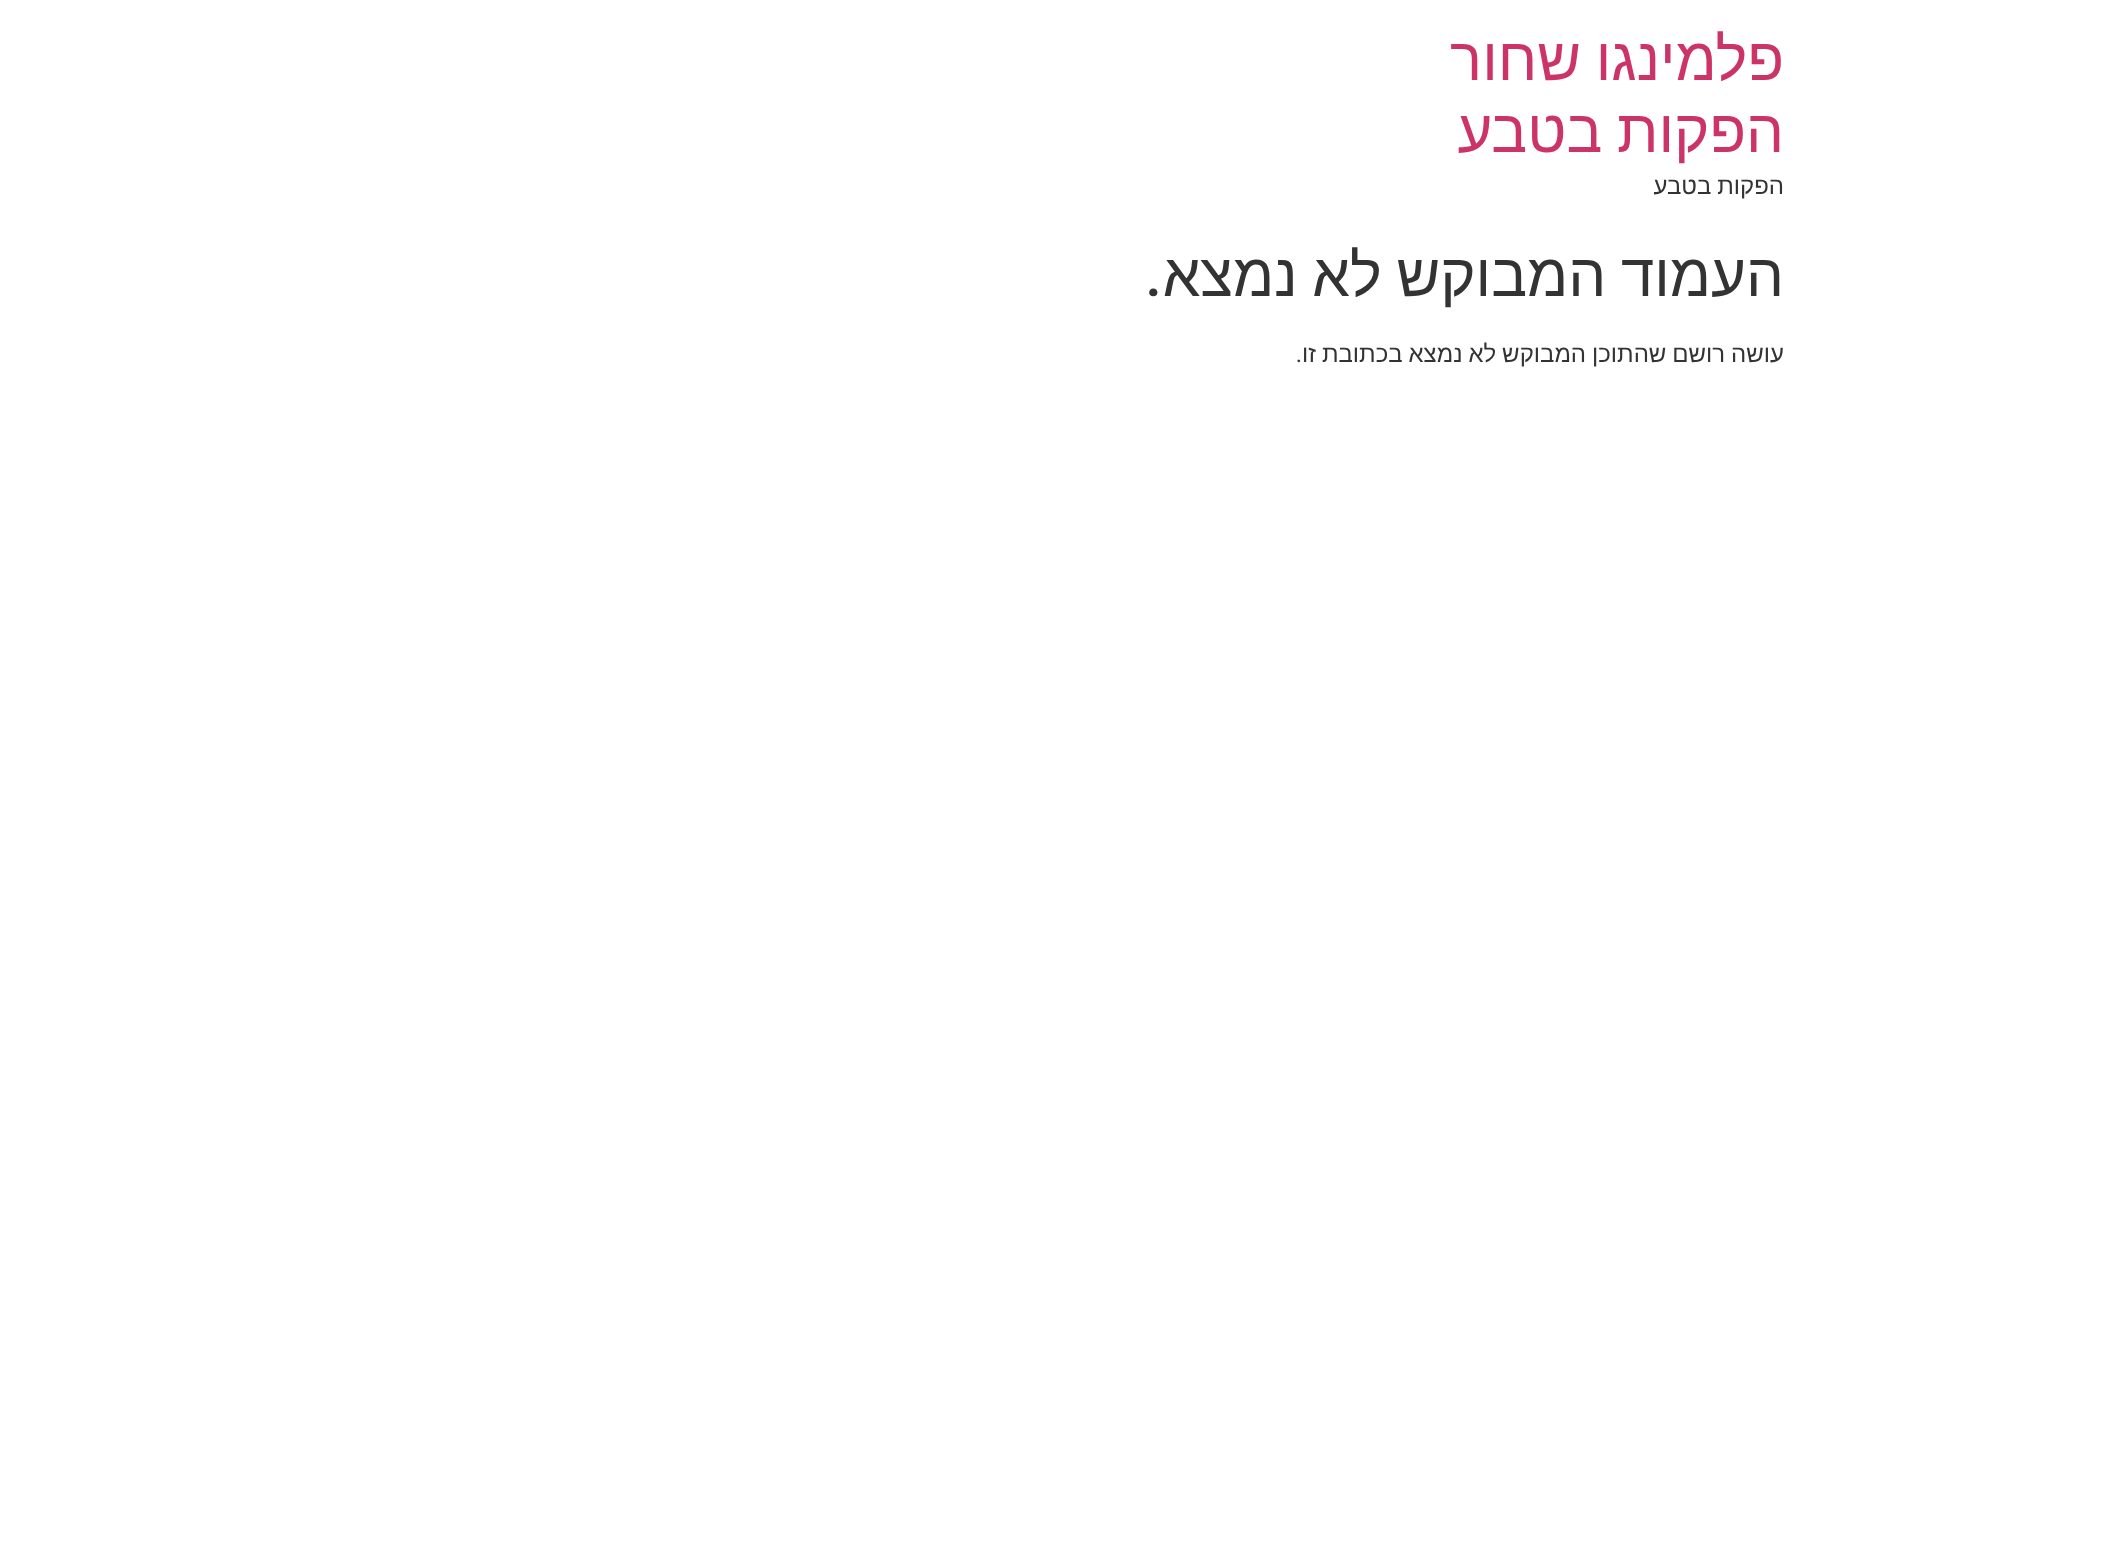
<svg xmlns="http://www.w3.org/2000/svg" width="2128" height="1549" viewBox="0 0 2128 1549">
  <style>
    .t1 { font: 60px Liberation Sans; direction: rtl; fill: #c36; }
    .t2 { font: 24px Liberation Sans; direction: rtl; fill: #333; }
    .t3 { font: 60px Liberation Sans; direction: rtl; fill: #333; }
    .t4 { font: 500 60px Roboto; direction: rtl; fill: #333; }
    .t5 { font: 24px Roboto; direction: rtl; fill: #333; }
  </style>
  <rect width="100%" height="100%" fill="#fff"/>
  <text x="1784" y="80" word-spacing="-2" class="t1">פלמינגו שחור</text>
  <text x="1784" y="152" word-spacing="-2" class="t1">הפקות בטבע</text>
  <text x="1784" y="194" word-spacing="-0.75" class="t2">הפקות בטבע</text>
  <text x="1784" y="296" word-spacing="-2" class="t3">העמוד המבוקש לא נמצא</text>
  <text x="1162" y="296" class="t4">.</text>
  <text x="1784" y="362" word-spacing="-0.75" class="t2">עושה רושם שהתוכן המבוקש לא נמצא בכתובת זו</text>
  <text x="1302" y="362" class="t5">.</text>
</svg>
